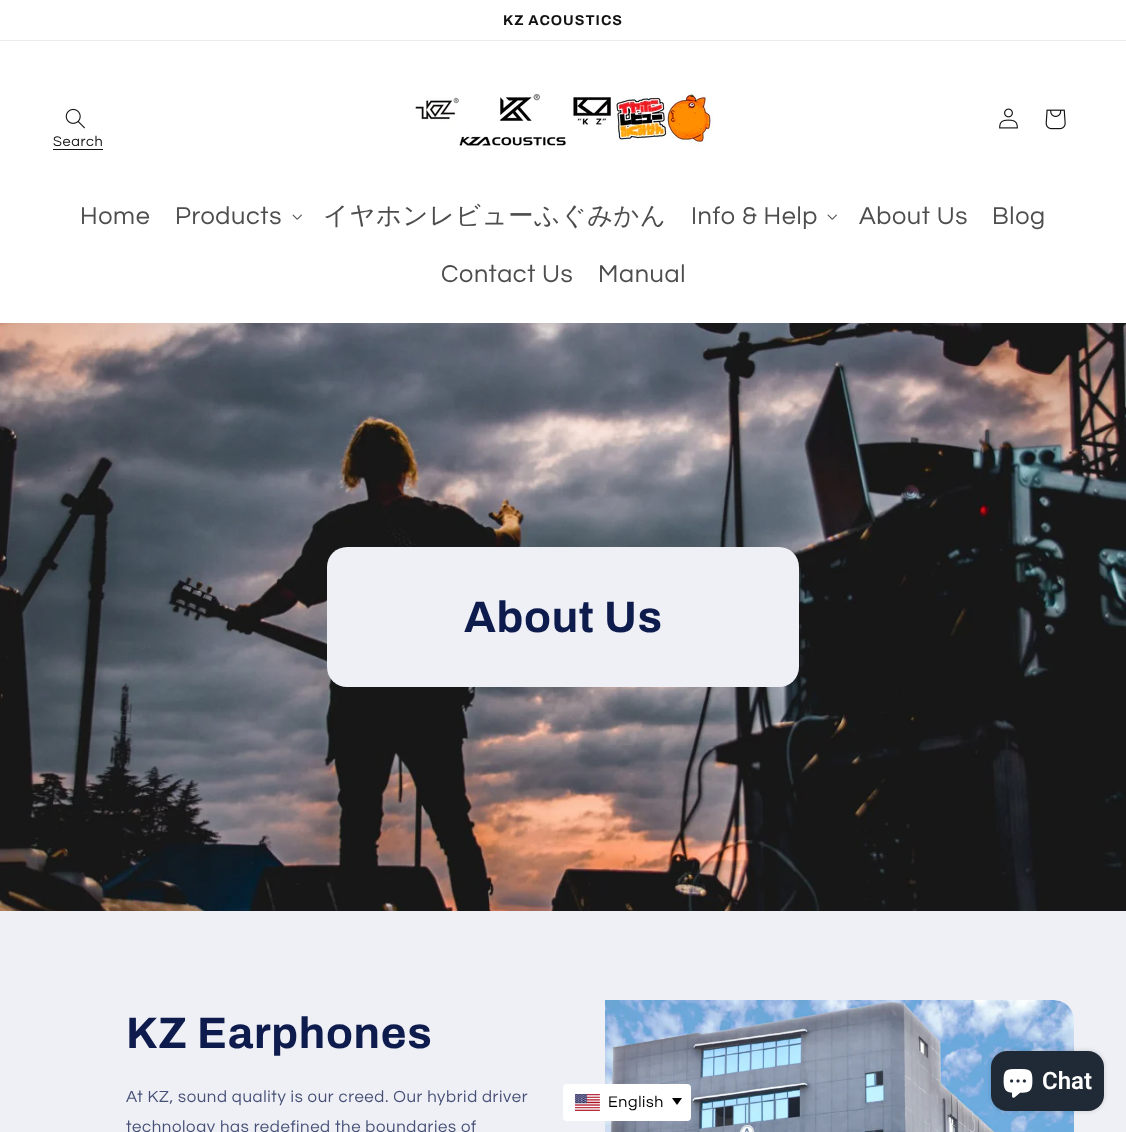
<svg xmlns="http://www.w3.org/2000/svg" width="1126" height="1132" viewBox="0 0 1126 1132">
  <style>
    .t1 { font: bold 14.25px Archivo; letter-spacing: 1px; fill: #121212; }
    .t2 { font: 14.5px Questrial; letter-spacing: 0.63px; fill: #121212; }
    .t3 { font: 25.25px Questrial; letter-spacing: 0.63px; fill: #4d4d4d; }
    .t4 { font: 500 25.25px WenQuanYi Zen Hei; letter-spacing: 0.63px; fill: #4d4d4d; }
    .t5 { font: bold 44px Archivo; letter-spacing: 0.7px; fill: #0e1b4d; }
    .t6 { font: 16.8px Questrial; letter-spacing: 0.63px; fill: #465077; }
    .t7 { font: 600 24px Roboto; fill: #fff; }
    .t8 { font: 16px Questrial; letter-spacing: 0.63px; fill: #000; }
  </style>
  <rect width="100%" height="100%" fill="#eff0f5"/>
  <rect x="0" y="0" width="1126" height="40" fill="#fff"/>
  <rect x="0" y="40" width="1126" height="1" fill="#ececec"/>
  <text x="503" y="25" class="t1">KZ ACOUSTICS</text>
  <rect x="0" y="41" width="1126" height="282" fill="#fff"/>
  <image x="413" y="93" width="300" height="56" href="images/1.png"/>
  <image x="999" y="108" width="19" height="21" href="images/2.png"/>
  <image x="1045" y="109" width="21" height="21" href="images/3.png"/>
  <image x="65" y="108" width="20" height="21" href="images/4.png"/>
  <text x="53" y="146" class="t2">Search</text>
  <rect x="53" y="149" width="50" height="1" fill="#121212"/>
  <text x="80" y="224" class="t3">Home</text>
  <text x="175" y="224" class="t3">Products</text>
  <image x="292" y="214" width="10" height="6" href="images/5.png"/>
  <text x="323" y="224" class="t4">イヤホンレビューふぐみかん</text>
  <text x="691" y="224" class="t3">Info &amp; Help</text>
  <image x="827" y="214" width="10" height="6" href="images/5.png"/>
  <text x="859" y="224" class="t3">About Us</text>
  <text x="992" y="224" class="t3">Blog</text>
  <text x="441" y="282" class="t3">Contact Us</text>
  <text x="598" y="282" class="t3">Manual</text>
  <image x="0" y="323" width="1126" height="588" href="images/6.png"/>
  <rect x="327" y="547" width="472" height="140" rx="20" fill="#eff0f5"/>
  <text x="464" y="632" class="t5">About Us</text>
  <text x="126" y="1048" class="t5">KZ Earphones</text>
  <text x="126" y="1102" class="t6">At KZ, sound quality is our creed. Our hybrid driver</text>
  <text x="126" y="1132" class="t6">technology has redefined the boundaries of</text>
  <image x="605" y="1000" width="469" height="132" href="images/7.png"/>
  <rect x="991" y="1051" width="113" height="60" rx="16" fill="#00000026" filter="blur(2.5px)"/>
  <rect x="991" y="1051" width="113" height="60" rx="16" fill="#202a36"/>
  <image x="1003" y="1069" width="30" height="29" href="images/8.png"/>
  <text x="1042" y="1089" class="t7">Chat</text>
  <rect x="563" y="1084" width="128" height="37" rx="4" fill="#fff"/>
  <image x="575" y="1094" width="25" height="17" href="images/9.png"/>
  <text x="608" y="1107" class="t8">English</text>
  <path d="M672 1098H682L677 1105Z" fill="#000"/>
</svg>
